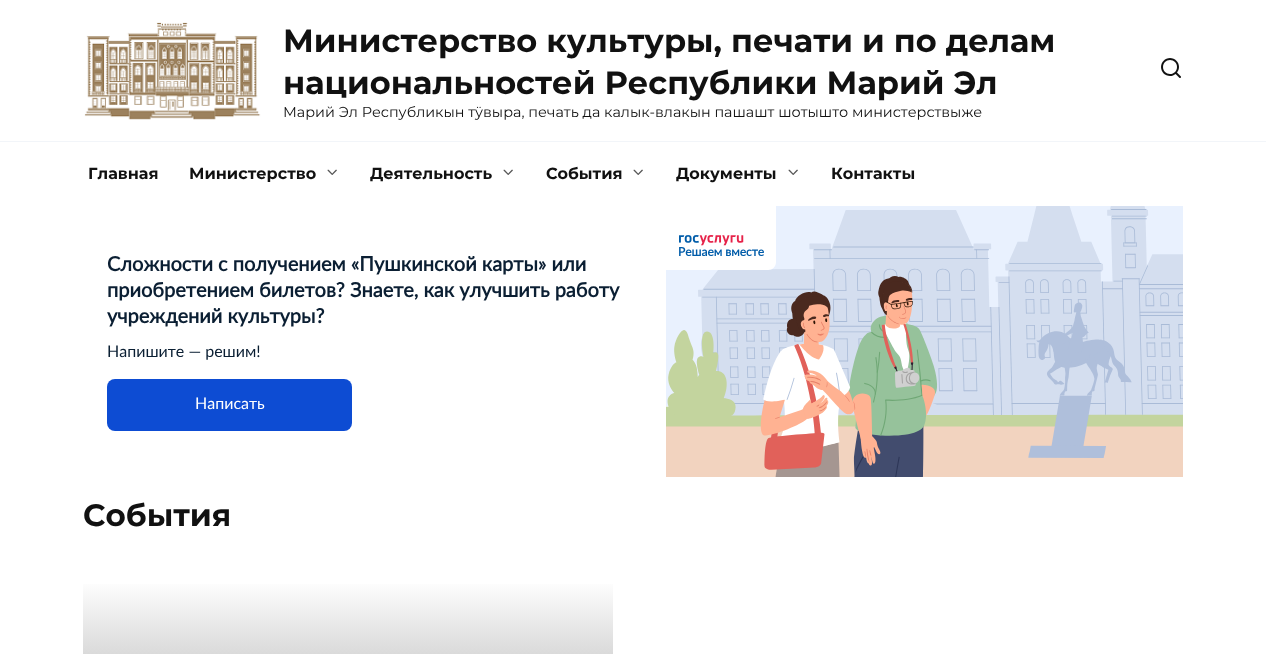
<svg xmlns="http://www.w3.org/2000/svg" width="1266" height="654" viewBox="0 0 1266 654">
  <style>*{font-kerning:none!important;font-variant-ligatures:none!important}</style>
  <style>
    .t1 { font: bold 32px Montserrat; fill: #111; }
    .t2 { font: 14.4px Montserrat; fill: #111; }
    .t3 { font: 24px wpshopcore; fill: #111; }
    .t4 { font: bold 16px Montserrat; fill: #111; }
    .t5 { font: 16px wpshopcore; fill: #585858; }
    .t6 { font: bold 12px Lato; fill: #005ca9; }
    .t7 { font: bold 20px Lato; fill: #0b1f33; }
    .t8 { font: 16px Lato; fill: #0b1f33; }
    .t9 { font: 16px Lato; fill: #fff; }
    .t10 { font: bold 31px Montserrat; fill: #111; }
  </style>
  <defs>
    <linearGradient id="g1" gradientUnits="userSpaceOnUse" x1="348" y1="579" x2="348" y2="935"><stop offset="0" stop-color="#fff"/><stop offset="0.8" stop-color="#737373"/></linearGradient>
  </defs>
  <rect width="100%" height="100%" fill="#fff"/>
  <rect x="0" y="141" width="1266" height="1" fill="#f2f5f9"/>
  <image x="84" y="22" width="177" height="98" href="images/1.png"/>
  <text x="283" y="52" class="t1">Министерство культуры, печати и по делам</text>
  <text x="283" y="94" class="t1">национальностей Республики Марий Эл</text>
  <text x="283" y="117" class="t2">Марий Эл Республикын тӱвыра, печать да калык-влакын пашашт шотышто министерствыже</text>
  <text x="1159" y="78" class="t3">🔍</text>
  <text x="88" y="179" class="t4">Главная</text>
  <text x="189" y="179" class="t4">Министерство</text>
  <text x="324" y="179" class="t5">﹀</text>
  <text x="370" y="179" class="t4">Деятельность</text>
  <text x="500" y="179" class="t5">﹀</text>
  <text x="546" y="179" class="t4">События</text>
  <text x="630" y="179" class="t5">﹀</text>
  <text x="676" y="179" class="t4">Документы</text>
  <text x="785" y="179" class="t5">﹀</text>
  <text x="831" y="179" class="t4">Контакты</text>
  <image x="666" y="206" width="517" height="271" href="images/2.png"/>
  <path d="M666 206H776V262C776 266.5 772.5 270 768 270H666Z" fill="#fff"/>
  <image x="679" y="235" width="65" height="11" href="images/3.png"/>
  <text x="678" y="256" class="t6">Решаем вместе</text>
  <text x="107" y="271" class="t7">Сложности с получением «Пушкинской карты» или</text>
  <text x="107" y="297" class="t7">приобретением билетов? Знаете, как улучшить работу</text>
  <text x="107" y="323" class="t7">учреждений культуры?</text>
  <text x="107" y="357" class="t8">Напишите — решим!</text>
  <rect x="107" y="379" width="245" height="52" rx="8" fill="#0d4cd3"/>
  <text x="195" y="409" class="t9">Написать</text>
  <text x="83" y="526" class="t10">События</text>
  <rect x="83" y="584" width="530" height="70" fill="url(#g1)"/>
</svg>
